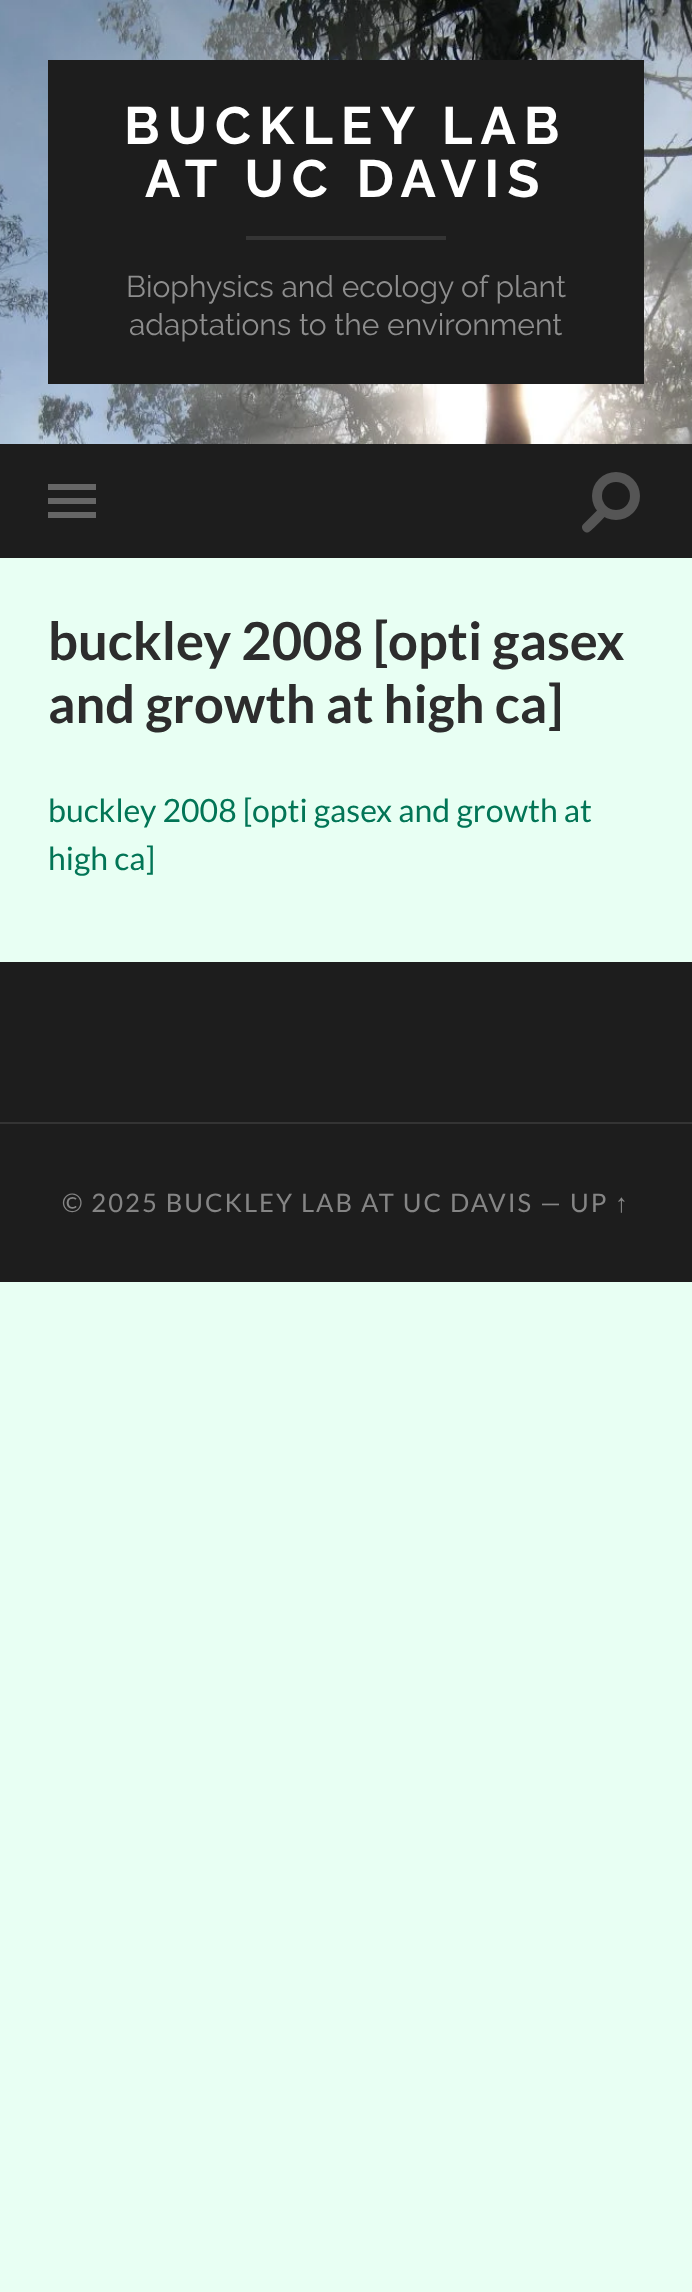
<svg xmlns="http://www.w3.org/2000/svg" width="692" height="2292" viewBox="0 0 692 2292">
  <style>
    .t1 { font: 100 52.5px Raleway; letter-spacing: 8px; fill: #fff; }
    .t2 { font: 100 30px 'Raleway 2'; fill: #8e8e8e; }
    .t3 { font: bold 52.5px Lato; fill: #2d2d2d; }
    .t4 { font: 32px Lato; fill: #027556; }
    .t5 { font: 25.6px Lato; letter-spacing: 2px; fill: #858585; }
    .t6 { font: 25.6px Liberation Sans; letter-spacing: 2px; fill: #858585; }
  </style>
  <rect width="100%" height="100%" fill="#e8fff3"/>
  <image x="0" y="0" width="692" height="444" href="images/1.png"/>
  <rect x="48" y="60" width="596" height="324" fill="#1d1d1d"/>
  <text x="124" y="144" class="t1">BUCKLEY LAB</text>
  <text x="145" y="197" class="t1">AT UC DAVIS</text>
  <rect x="246" y="236" width="200" height="4" fill="#343434"/>
  <text x="126" y="297" class="t2">Biophysics and ecology of plant</text>
  <text x="129" y="335" class="t2">adaptations to the environment</text>
  <rect x="0" y="444" width="692" height="114" fill="#1d1d1d"/>
  <rect x="48" y="484" width="48" height="6" fill="#666"/>
  <rect x="48" y="498" width="48" height="6" fill="#666"/>
  <rect x="48" y="512" width="48" height="6" fill="#666"/>
  <circle cx="616" cy="496" r="24" fill="#555"/>
  <circle cx="616" cy="496" r="14" fill="#1d1d1d"/>
  <path d="M583 524.5L600 507.5L607 514.5C604 517.5 590.5 532 588 532.5C584 533.5 580 527.5 583 524.5Z" fill="#555"/>
  <text x="48" y="660" class="t3">buckley 2008 [opti gasex</text>
  <text x="48" y="723" class="t3">and growth at high ca]</text>
  <text x="48" y="822" class="t4">buckley 2008 [opti gasex and growth at</text>
  <text x="48" y="870" class="t4">high ca]</text>
  <rect x="0" y="962" width="692" height="160" fill="#1d1d1d"/>
  <rect x="0" y="1124" width="692" height="158" fill="#1d1d1d"/>
  <rect x="0" y="1122" width="692" height="2" fill="#343434"/>
  <text x="62" y="1212" class="t5">© 2025 BUCKLEY LAB AT UC DAVIS — UP</text>
  <text x="615" y="1212" class="t6">↑</text>
</svg>
